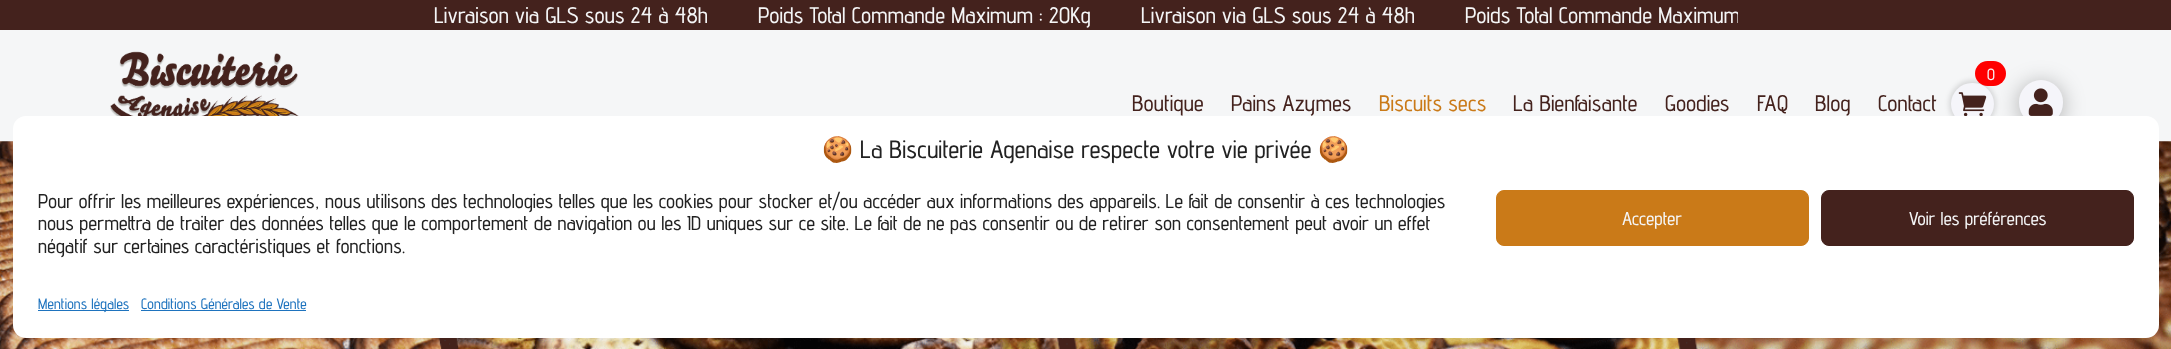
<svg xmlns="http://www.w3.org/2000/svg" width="2171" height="349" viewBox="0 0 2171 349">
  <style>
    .t1 { font: 500 22.5px Advent Pro; fill: #f5f6f7; }
    .t2 { font: 500 16px Advent Pro; fill: #f5f6f7; }
    .t3 { font: 500 22.5px Advent Pro; fill: #44221d; }
    .t4 { font: 500 22.5px Advent Pro; fill: #ca7a18; }
    .t5 { font: 25px Noto Color Emoji; fill: #222; }
    .t6 { font: 500 25px Advent Pro; fill: #222; }
    .t7 { font: 500 20px Advent Pro; fill: #222; }
    .t8 { font: 500 18.75px Advent Pro; fill: #f5f6f7; }
    .t9 { font: 500 15px Advent Pro; fill: #1e73be; }
  </style>
  <defs>
    <clipPath id="clip1"><rect x="434" y="0" width="1304" height="30"/></clipPath>
  </defs>
  <rect width="100%" height="100%" fill="#fff"/>
  <image x="0" y="141" width="2171" height="208" href="images/4.png"/>
  <rect x="8" y="23" width="2156" height="126" fill="#3023591a" filter="blur(11px)"/>
  <rect x="0" y="30" width="2171" height="111" fill="#f5f6f7"/>
  <rect x="0" y="0" width="2171" height="30" fill="#44221d"/>
  <text x="434" y="23" class="t1">Livraison via GLS sous 24 à 48h</text>
  <text x="758" y="23" class="t1">Poids Total Commande Maximum : 20Kg</text>
  <text x="1141" y="23" class="t1">Livraison via GLS sous 24 à 48h</text>
  <g clip-path="url(#clip1)">
    <text x="1465" y="23" class="t1">Poids Total Commande Maximum</text>
  </g>
  <image x="110" y="51" width="189" height="65" href="images/1.png"/>
  <rect x="1949" y="80" width="47" height="48" rx="23.5" fill="#0000001f" filter="blur(2.5px)"/>
  <rect x="1951" y="83" width="43" height="42" rx="21" fill="#f5f5fa"/>
  <rect x="1975" y="61" width="31" height="25" rx="12.5" fill="#f00"/>
  <text x="1987" y="80" class="t2">0</text>
  <image x="1958" y="92" width="29" height="24" href="images/2.png"/>
  <text x="1132" y="111" class="t3">Boutique</text>
  <text x="1231" y="111" class="t3">Pains Azymes</text>
  <text x="1379" y="111" class="t4">Biscuits secs</text>
  <text x="1513" y="111" class="t3">La Bienfaisante</text>
  <text x="1665" y="111" class="t3">Goodies</text>
  <text x="1757" y="111" class="t3">FAQ</text>
  <text x="1815" y="111" class="t3">Blog</text>
  <text x="1878" y="111" class="t3">Contact</text>
  <rect x="2019" y="83" width="44" height="45" rx="22" fill="#0000004d" filter="blur(11px)"/>
  <rect x="2019" y="80" width="44" height="45" rx="22" fill="#f5f5fa"/>
  <image x="2028" y="88" width="25" height="28" href="images/3.png"/>
  <rect x="13" y="116" width="2146" height="222" rx="13" fill="#fff"/>
  <text x="822" y="158" class="t5">🍪</text>
  <text x="860" y="158" class="t6">La Biscuiterie Agenaise respecte votre vie privée</text>
  <text x="1318" y="158" class="t5">🍪</text>
  <text x="38" y="208" class="t7">Pour offrir les meilleures expériences, nous utilisons des technologies telles que les cookies pour stocker et/ou accéder aux informations des appareils. Le fait de consentir à ces technologies</text>
  <text x="38" y="230" class="t7">nous permettra de traiter des données telles que le comportement de navigation ou les ID uniques sur ce site. Le fait de ne pas consentir ou de retirer son consentement peut avoir un effet</text>
  <text x="38" y="253" class="t7">négatif sur certaines caractéristiques et fonctions.</text>
  <rect x="1496.5" y="190.5" width="312" height="55" rx="7.5" fill="#ca7a18" stroke="#ca7a18"/>
  <text x="1622" y="225" class="t8">Accepter</text>
  <rect x="1821.5" y="190.5" width="312" height="55" rx="7.5" fill="#44221d" stroke="#44221d"/>
  <text x="1909" y="225" class="t8">Voir les préférences</text>
  <rect x="38" y="310" width="91" height="1" fill="#1e73be"/>
  <text x="38" y="309" class="t9">Mentions légales</text>
  <text x="141" y="309" class="t9">Conditions Générales de Vente</text>
  <rect x="141" y="310" width="165" height="1" fill="#1e73be"/>
</svg>
